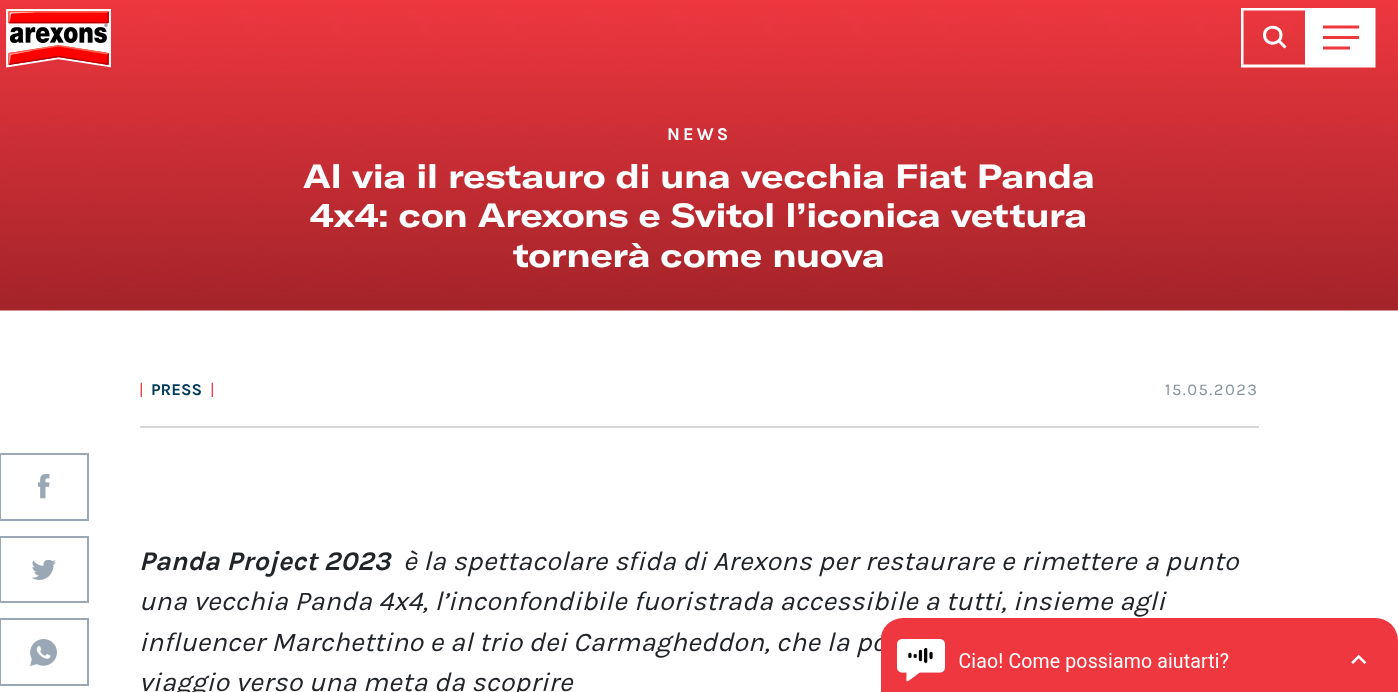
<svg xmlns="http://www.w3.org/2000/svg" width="1398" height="692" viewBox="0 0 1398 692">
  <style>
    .t1 { font: bold 18px Karla; letter-spacing: 3px; fill: #fff; }
    .t2 { font: bold 33px GT America; fill: #fff; }
    .t3 { font: 16.5px Karla; fill: #ee373f; }
    .t4 { font: bold 16.5px Karla; fill: #013b5b; }
    .t5 { font: 16.5px Karla; letter-spacing: 1.5px; fill: #85929f; }
    .t6 { font: italic bold 27px Karla; fill: #212529; }
    .t7 { font: italic 27px Karla; fill: #212529; }
  </style>
  <defs>
    <clipPath id="clip1"><rect x="1241" y="8" width="67" height="60"/></clipPath>
    <clipPath id="clip2"><rect x="1308" y="8" width="68" height="60"/></clipPath>
  </defs>
  <rect width="100%" height="100%" fill="#fff"/>
  <image x="0" y="0" width="1398" height="311" href="images/2.png"/>
  <image x="6" y="9" width="105" height="59" href="images/1.png"/>
  <g clip-path="url(#clip1)">
    <path d="M1242 9V66H1306.5V9Z" fill="none" stroke="#fff" stroke-width="3"/>
  </g>
  <path d="M1281 35C1281 46 1264.5 46 1264.5 35C1264.5 24.5 1281 24.5 1281 35ZM1285.5 47.5L1278 40" fill="none" stroke="#fff" stroke-width="3"/>
  <rect x="1311" y="10" width="62" height="55" fill="#fff"/>
  <g clip-path="url(#clip2)">
    <path d="M1309.5 9V66H1374V9Z" fill="none" stroke="#fff" stroke-width="3"/>
  </g>
  <path d="M1323 25.5H1359V28.5H1323ZM1323 36H1359V39H1323ZM1323 46.5H1350V49.5H1323Z" fill="#ee373f" fill-rule="evenodd"/>
  <text x="667" y="140" class="t1">NEWS</text>
  <text x="303" y="188" class="t2">Al via il restauro di una vecchia Fiat Panda</text>
  <text x="310" y="227" class="t2">4x4: con Arexons e Svitol l’iconica vettura</text>
  <text x="513" y="267" class="t2">tornerà come nuova</text>
  <image x="38" y="474" width="12" height="25" href="images/3.png"/>
  <rect x="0" y="454" width="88" height="66" fill="none" stroke="#9aa8b6" stroke-width="2"/>
  <image x="32" y="560" width="24" height="20" href="images/4.png"/>
  <rect x="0" y="537" width="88" height="65" fill="none" stroke="#9aa8b6" stroke-width="2"/>
  <image x="30" y="639" width="27" height="27" href="images/5.png"/>
  <rect x="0" y="619" width="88" height="66" fill="none" stroke="#9aa8b6" stroke-width="2"/>
  <rect x="140" y="426" width="1119" height="2" fill="#d7d7d7"/>
  <text x="139" y="395" class="t3">|</text>
  <text x="151" y="395" class="t4">PRESS</text>
  <text x="210" y="395" class="t3">|</text>
  <text x="1165" y="395" class="t5">15.05.2023</text>
  <text x="139" y="570" class="t6">Panda Project 2023</text>
  <text x="403" y="570" class="t7">è la spettacolare sfida di Arexons per restaurare e rimettere a punto</text>
  <text x="139" y="610" class="t7">una vecchia Panda 4x4, l’inconfondibile fuoristrada accessibile a tutti, insieme agli</text>
  <text x="139" y="651" class="t7">influencer Marchettino e al trio dei Carmagheddon, che la po</text>
  <text x="139" y="691" class="t7">viaggio verso una meta da scoprire</text>
  <image x="881" y="618" width="517" height="74" href="images/6.png"/>
</svg>
